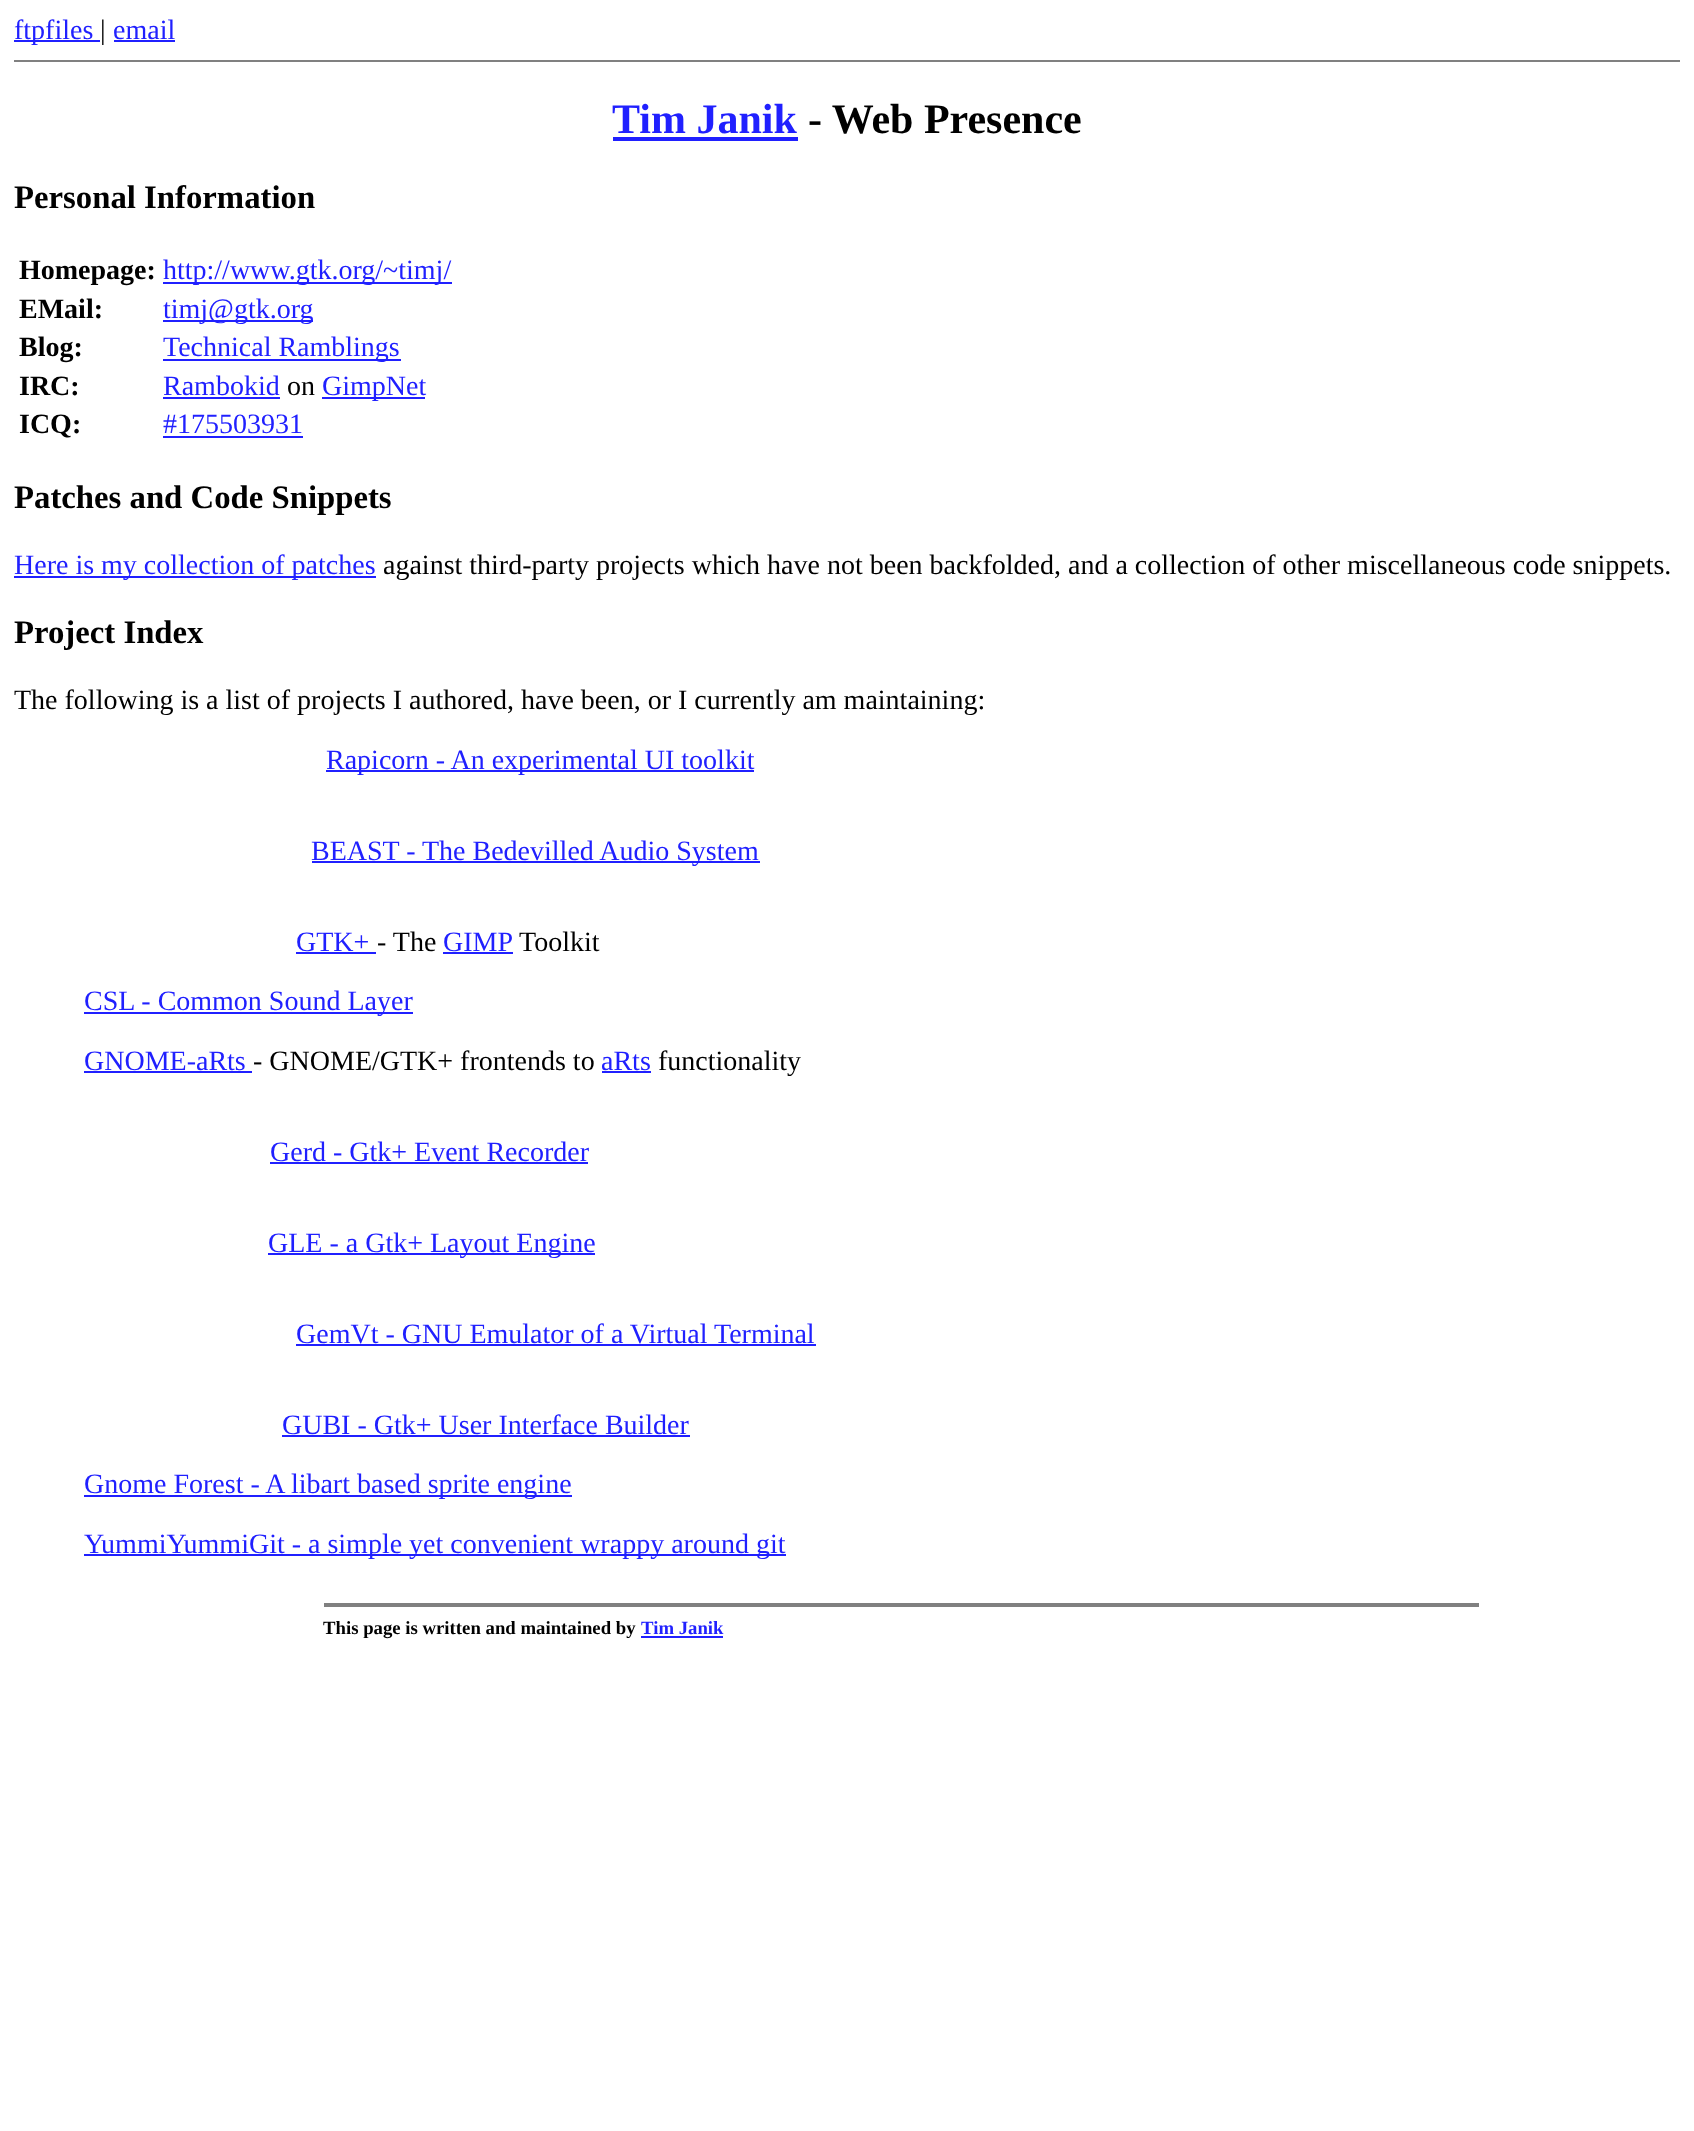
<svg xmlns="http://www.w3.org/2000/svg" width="1694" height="2131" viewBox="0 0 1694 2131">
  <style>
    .t1 { font: 28px Liberation Serif; fill: #2020ff; }
    .t2 { font: 28px Liberation Serif; fill: #000; }
    .t3 { font: bold 42px Liberation Serif; fill: #2020ff; }
    .t4 { font: bold 42px Liberation Serif; fill: #000; }
    .t5 { font: bold 32.75px Liberation Serif; fill: #000; }
    .t6 { font: bold 28px Liberation Serif; fill: #000; }
    .t7 { font: bold 18.75px Liberation Serif; fill: #000; }
    .t8 { font: bold 18.75px Liberation Serif; fill: #2020ff; }
  </style>
  <rect width="100%" height="100%" fill="#fff"/>
  <rect x="14" y="40" width="86" height="2" fill="#2020ff"/>
  <text x="14" y="39" class="t1">ftpfiles</text>
  <text x="100" y="39" class="t2">|</text>
  <text x="113" y="39" class="t1">email</text>
  <rect x="114" y="40" width="61" height="2" fill="#2020ff"/>
  <rect x="14" y="60" width="1666" height="2" fill="#808080"/>
  <text x="612" y="133" class="t3">Tim Janik</text>
  <rect x="613" y="137" width="185" height="4" fill="#2020ff"/>
  <text x="808" y="133" class="t4">- Web Presence</text>
  <text x="14" y="208" class="t5">Personal Information</text>
  <text x="19" y="279" class="t6">Homepage:</text>
  <rect x="163" y="282" width="289" height="2" fill="#2020ff"/>
  <text x="163" y="279" class="t1">http://www.gtk.org/~timj/</text>
  <text x="19" y="318" class="t6">EMail:</text>
  <rect x="163" y="320" width="150" height="2" fill="#2020ff"/>
  <text x="163" y="318" class="t1">timj@gtk.org</text>
  <text x="19" y="356" class="t6">Blog:</text>
  <rect x="163" y="359" width="238" height="2" fill="#2020ff"/>
  <text x="163" y="356" class="t1">Technical Ramblings</text>
  <text x="19" y="395" class="t6">IRC:</text>
  <text x="163" y="395" class="t1">Rambokid</text>
  <rect x="163" y="397" width="117" height="2" fill="#2020ff"/>
  <text x="287" y="395" class="t2">on</text>
  <rect x="322" y="397" width="103" height="2" fill="#2020ff"/>
  <text x="322" y="395" class="t1">GimpNet</text>
  <text x="19" y="433" class="t6">ICQ:</text>
  <text x="163" y="433" class="t1">#175503931</text>
  <rect x="163" y="436" width="140" height="2" fill="#2020ff"/>
  <text x="14" y="508" class="t5">Patches and Code Snippets</text>
  <rect x="14" y="576" width="362" height="2" fill="#2020ff"/>
  <text x="14" y="574" class="t1">Here is my collection of patches</text>
  <text x="383" y="574" class="t2">against third-party projects which have not been backfolded, and a collection of other miscellaneous code snippets.</text>
  <text x="14" y="643" class="t5">Project Index</text>
  <text x="14" y="709" class="t2">The following is a list of projects I authored, have been, or I currently am maintaining:</text>
  <rect x="326" y="770" width="428" height="2" fill="#2020ff"/>
  <text x="326" y="769" class="t1">Rapicorn - An experimental UI toolkit</text>
  <rect x="312" y="861" width="448" height="2" fill="#2020ff"/>
  <text x="311" y="860" class="t1">BEAST - The Bedevilled Audio System</text>
  <text x="296" y="951" class="t1">GTK+</text>
  <rect x="296" y="952" width="80" height="2" fill="#2020ff"/>
  <text x="377" y="951" class="t2">- The</text>
  <text x="443" y="951" class="t1">GIMP</text>
  <rect x="443" y="952" width="70" height="2" fill="#2020ff"/>
  <text x="519" y="951" class="t2">Toolkit</text>
  <rect x="84" y="1012" width="329" height="2" fill="#2020ff"/>
  <text x="84" y="1010" class="t1">CSL - Common Sound Layer</text>
  <text x="84" y="1070" class="t1">GNOME-aRts</text>
  <rect x="84" y="1071" width="168" height="2" fill="#2020ff"/>
  <text x="253" y="1070" class="t2">- GNOME/GTK+ frontends to</text>
  <text x="601" y="1070" class="t1">aRts</text>
  <rect x="602" y="1071" width="49" height="2" fill="#2020ff"/>
  <text x="658" y="1070" class="t2">functionality</text>
  <text x="270" y="1161" class="t1">Gerd - Gtk+ Event Recorder</text>
  <rect x="270" y="1162" width="318" height="2" fill="#2020ff"/>
  <rect x="268" y="1253" width="327" height="2" fill="#2020ff"/>
  <text x="268" y="1252" class="t1">GLE - a Gtk+ Layout Engine</text>
  <text x="296" y="1343" class="t1">GemVt - GNU Emulator of a Virtual Terminal</text>
  <rect x="296" y="1344" width="520" height="2" fill="#2020ff"/>
  <text x="282" y="1434" class="t1">GUBI - Gtk+ User Interface Builder</text>
  <rect x="282" y="1435" width="408" height="2" fill="#2020ff"/>
  <rect x="84" y="1495" width="488" height="2" fill="#2020ff"/>
  <text x="84" y="1493" class="t1">Gnome Forest - A libart based sprite engine</text>
  <rect x="84" y="1554" width="702" height="2" fill="#2020ff"/>
  <text x="84" y="1553" class="t1">YummiYummiGit - a simple yet convenient wrappy around git</text>
  <rect x="324" y="1603" width="1155" height="4" fill="#808080"/>
  <text x="323" y="1634" class="t7">This page is written and maintained by</text>
  <text x="641" y="1634" class="t8">Tim Janik</text>
  <rect x="641" y="1636" width="82" height="2" fill="#2020ff"/>
</svg>
